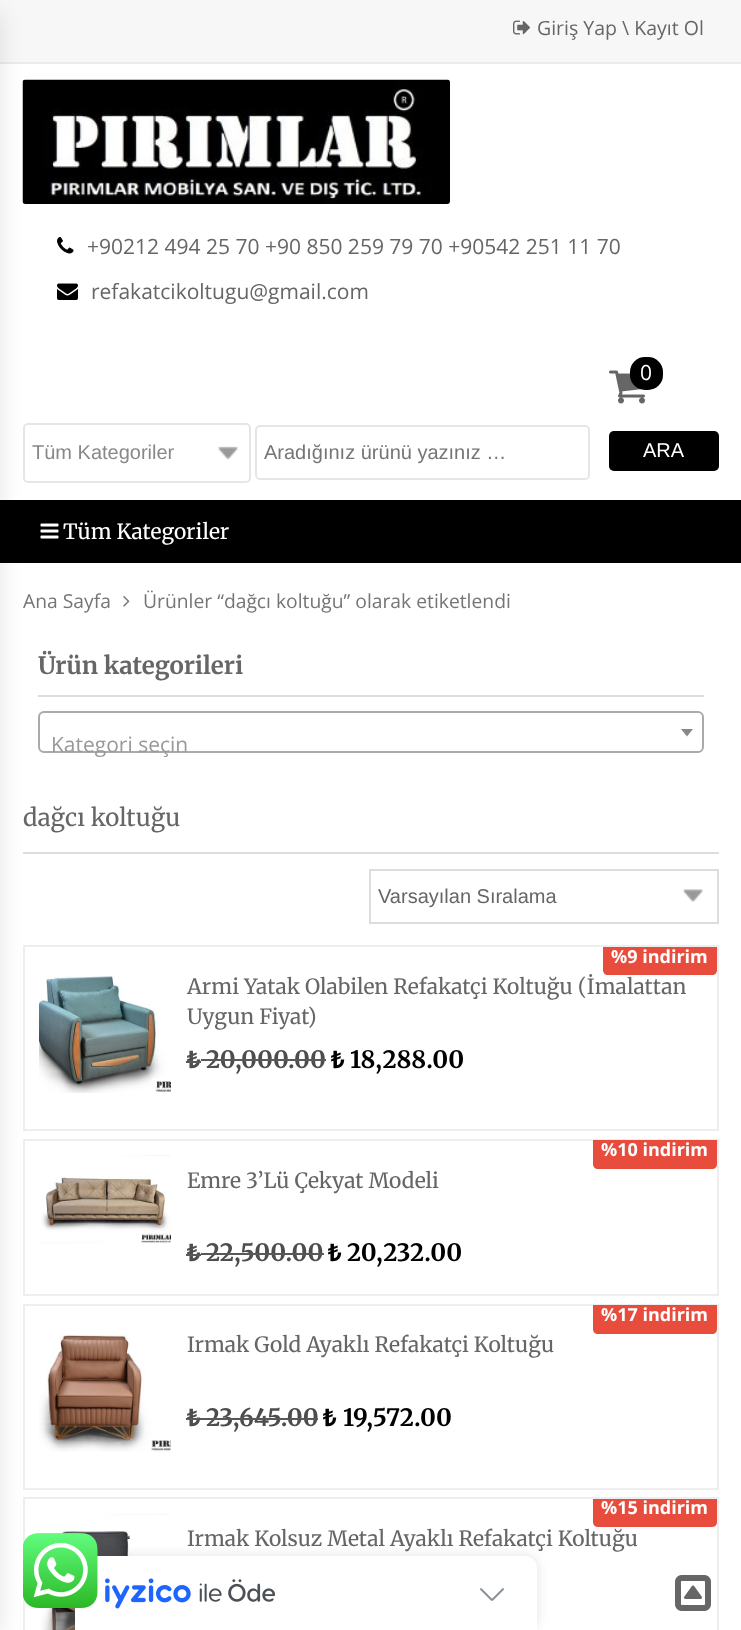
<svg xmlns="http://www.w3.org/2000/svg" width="741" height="1630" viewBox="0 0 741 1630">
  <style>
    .t1 { font: 19.5px Open Sans; fill: #666; }
    .t2 { font: 21px Open Sans; fill: #666; }
    .t3 { font: 21px Open Sans; fill: #fff; }
    .t4 { font: 20px Liberation Sans; fill: #888; }
    .t5 { font: 20px Liberation Sans; fill: #757575; }
    .t6 { font: 20px Liberation Sans; fill: #fff; }
    .t7 { font: 21px Merriweather; fill: #fff; }
    .t8 { font: 19.3px Open Sans; fill: #757575; }
    .t9 { font: bold 24px Merriweather; fill: #666; }
    .t10 { font: 21px Open Sans; fill: #999; }
    .t11 { font: 24px Merriweather; fill: #666; }
    .t12 { font: 20px Liberation Sans; fill: #666; }
    .t13 { font: 21px Merriweather; fill: #666; }
    .t14 { font: bold 18px Open Sans; fill: #fff; }
    .t15 { font: bold 24px Noto Sans; fill: #4d4d4d; }
    .t16 { font: bold 24px Merriweather; fill: #4d4d4d; }
    .t17 { font: bold 24px Noto Sans; fill: #000; }
    .t18 { font: bold 24px Merriweather; fill: #000; }
  </style>
  <rect width="100%" height="100%" fill="#fff"/>
  <rect x="0" y="0" width="741" height="62" fill="#f7f7f7"/>
  <rect x="0" y="62" width="741" height="2" fill="#ebebeb"/>
  <image x="22" y="79" width="428" height="125" href="images/2.png"/>
  <image x="217" y="446" width="22" height="14" href="images/6.png"/>
  <rect x="24" y="424" width="226" height="58" rx="4" fill="none" stroke="#e6e6e6" stroke-width="2"/>
  <rect x="0" y="500" width="741" height="63" fill="#000"/>
  <rect x="23" y="852" width="696" height="2" fill="#ddd"/>
  <rect x="24" y="946" width="694" height="184" fill="none" stroke="#eee" stroke-width="2"/>
  <rect x="24" y="1140" width="694" height="155" fill="none" stroke="#eee" stroke-width="2"/>
  <rect x="24" y="1305" width="694" height="184" fill="none" stroke="#eee" stroke-width="2"/>
  <rect x="24" y="1498" width="694" height="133" fill="none" stroke="#eee" stroke-width="2"/>
  <rect x="-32" y="12" width="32" height="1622" fill="#0000001c" filter="blur(10.5px)"/>
  <image x="513" y="20" width="17" height="15" href="images/1.png"/>
  <text x="537" y="35" class="t1">Giriş Yap \ Kayıt Ol</text>
  <image x="57" y="237" width="17" height="17" href="images/3.png"/>
  <text x="87" y="254" class="t2">+90212 494 25 70 +90 850 259 79 70 +90542 251 11 70</text>
  <image x="57" y="283" width="21" height="17" href="images/4.png"/>
  <text x="91" y="299" class="t2">refakatcikoltugu@gmail.com</text>
  <image x="609" y="370" width="36" height="34" href="images/5.png"/>
  <rect x="630" y="357" width="33" height="33" rx="15" fill="#000"/>
  <rect x="631" y="358" width="31" height="31" rx="14" fill="none" stroke="#0000001a" stroke-width="2"/>
  <text x="640" y="380" class="t3">0</text>
  <text x="32" y="459" class="t4">Tüm Kategoriler</text>
  <rect x="256" y="426" width="333" height="53" rx="4" fill="none" stroke="#e6e6e6" stroke-width="2"/>
  <text x="264" y="459" class="t5">Aradığınız ürünü yazınız …</text>
  <rect x="609" y="431" width="110" height="40" rx="5" fill="#000"/>
  <rect x="610" y="432" width="108" height="38" rx="4" fill="none" stroke="#0000001a" stroke-width="2"/>
  <text x="643" y="457" class="t6">ARA</text>
  <image x="40" y="523" width="19" height="16" href="images/7.png"/>
  <text x="63" y="539" class="t7">Tüm Kategoriler</text>
  <text x="23" y="608" class="t8">Ana Sayfa</text>
  <image x="123" y="596" width="7" height="11" href="images/8.png"/>
  <text x="143" y="608" class="t8">Ürünler “dağcı koltuğu” olarak etiketlendi</text>
  <rect x="38" y="695" width="666" height="2" fill="#ddd"/>
  <text x="38" y="674" class="t9">Ürün kategorileri</text>
  <rect x="39" y="712" width="664" height="40" rx="5" fill="none" stroke="#aaa" stroke-width="2"/>
  <path d="M681 729H693L687 736.5Z" fill="#888"/>
  <text x="51" y="752" class="t10">Kategori seçin</text>
  <text x="23" y="826" class="t11">dağcı koltuğu</text>
  <image x="682" y="889" width="22" height="13" href="images/9.png"/>
  <rect x="370" y="870" width="348" height="53" fill="none" stroke="#ddd" stroke-width="2"/>
  <text x="378" y="903" class="t12">Varsayılan Sıralama</text>
  <text x="187" y="994" class="t13">Armi Yatak Olabilen Refakatçi Koltuğu (İmalattan</text>
  <path d="M603 947H717V970C717 973 715 975 712 975H608C605 975 603 973 603 970Z" fill="#e74c3c"/>
  <text x="611" y="963" class="t14">%9 indirim</text>
  <image x="39" y="976" width="132" height="117" href="images/10.png"/>
  <text x="187" y="1024" class="t13">Uygun Fiyat)</text>
  <text x="187" y="1068" class="t15">₺</text>
  <rect x="186" y="1061" width="15" height="2" fill="#585858"/>
  <text x="206" y="1068" class="t16">20,000.00</text>
  <rect x="201" y="1059" width="125" height="2" fill="#585858"/>
  <text x="331" y="1068" class="t17">₺</text>
  <text x="350" y="1068" class="t18">18,288.00</text>
  <path d="M593 1140H717V1164C717 1167 715 1169 712 1169H598C595 1169 593 1167 593 1164Z" fill="#e74c3c"/>
  <text x="601" y="1156" class="t14">%10 indirim</text>
  <image x="41" y="1155" width="130" height="89" href="images/11.png"/>
  <text x="187" y="1188" class="t13">Emre 3’Lü Çekyat Modeli</text>
  <text x="187" y="1261" class="t15">₺</text>
  <rect x="186" y="1254" width="15" height="2" fill="#585858"/>
  <text x="206" y="1261" class="t16">22,500.00</text>
  <rect x="201" y="1253" width="123" height="2" fill="#585858"/>
  <text x="328" y="1261" class="t17">₺</text>
  <text x="347" y="1261" class="t18">20,232.00</text>
  <path d="M593 1305H717V1329C717 1332 715 1334 712 1334H598C595 1334 593 1332 593 1329Z" fill="#e74c3c"/>
  <text x="601" y="1321" class="t14">%17 indirim</text>
  <image x="39" y="1334" width="132" height="118" href="images/12.png"/>
  <text x="187" y="1352" class="t13">Irmak Gold Ayaklı Refakatçi Koltuğu</text>
  <text x="187" y="1426" class="t15">₺</text>
  <rect x="186" y="1418" width="15" height="2" fill="#585858"/>
  <text x="206" y="1426" class="t16">23,645.00</text>
  <rect x="201" y="1418" width="117" height="2" fill="#585858"/>
  <text x="323" y="1426" class="t17">₺</text>
  <text x="343" y="1426" class="t18">19,572.00</text>
  <path d="M593 1499H717V1522C717 1525 715 1527 712 1527H598C595 1527 593 1525 593 1522Z" fill="#e74c3c"/>
  <text x="601" y="1514" class="t14">%15 indirim</text>
  <image x="41" y="1513" width="129" height="117" href="images/13.png"/>
  <text x="187" y="1546" class="t13">Irmak Kolsuz Metal Ayaklı Refakatçi Koltuğu</text>
  <rect x="75" y="1556" width="462" height="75" rx="12" fill="#0000001f" filter="blur(6px)"/>
  <path d="M87 1556H525C531.5 1556 537 1561.5 537 1568V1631H75V1568C75 1561.5 80.5 1556 87 1556Z" fill="#fff"/>
  <image x="23" y="1533" width="75" height="75" href="images/14.png"/>
  <image x="105" y="1578" width="171" height="31" href="images/15.png"/>
  <image x="480" y="1588" width="24" height="13" href="images/16.png"/>
  <image x="675" y="1575" width="36" height="36" href="images/17.png"/>
</svg>
